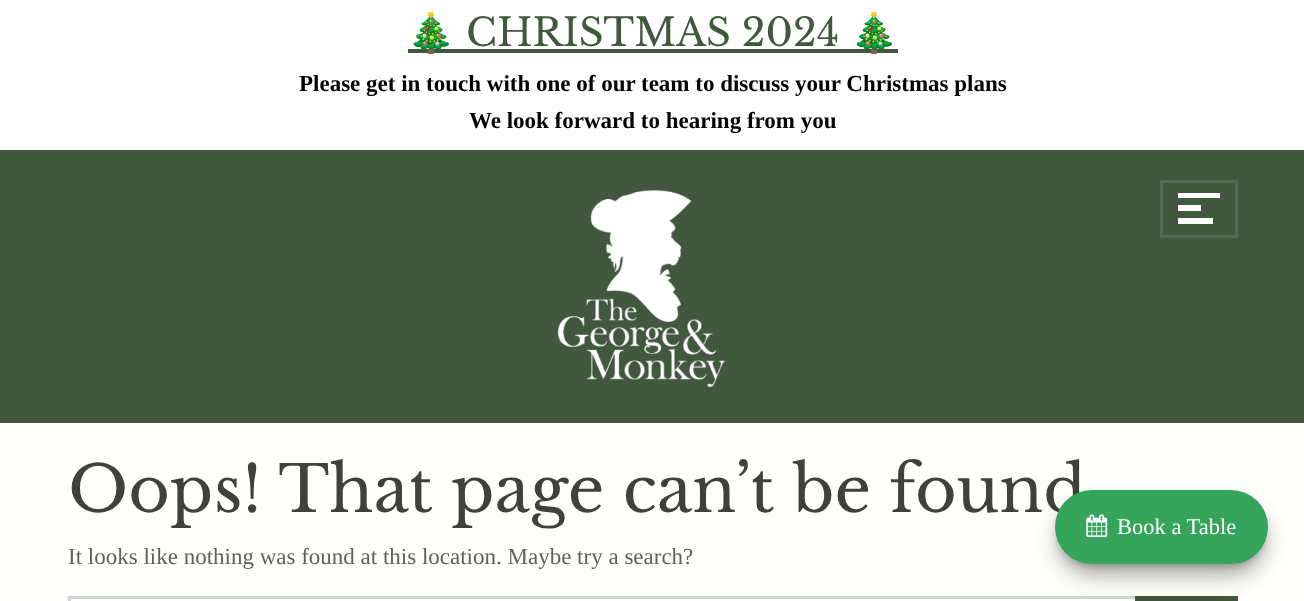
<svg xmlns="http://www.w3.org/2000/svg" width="1304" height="601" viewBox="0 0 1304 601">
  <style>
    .t1 { font: 38.5px Noto Color Emoji; fill: #41583e; }
    .t2 { font: 38.5px Libre Baskerville; fill: #41583e; }
    .t3 { font: bold 23px Tinos; fill: #000; }
    .t4 { font: 63.8px Libre Baskerville; fill: #3f423b; }
    .t5 { font: 23px Tinos; fill: #606060; }
    .t6 { font: 22.5px Tinos; fill: #fff; }
  </style>
  <rect width="100%" height="100%" fill="#fffffb"/>
  <rect x="0" y="0" width="1304" height="150" fill="#fff"/>
  <rect x="408" y="49" width="490" height="4" fill="#41583e"/>
  <text x="407" y="46" class="t1">🎄</text>
  <text x="466" y="46" class="t2">CHRISTMAS 2024</text>
  <text x="850" y="46" class="t1">🎄</text>
  <text x="299" y="91" class="t3">Please get in touch with one of our team to discuss your Christmas plans</text>
  <text x="469" y="128" class="t3">We look forward to hearing from you</text>
  <rect x="0" y="150" width="1304" height="273" fill="#41583e"/>
  <image x="557" y="190" width="169" height="198" href="images/1.png"/>
  <rect x="1161.5" y="181.5" width="75" height="55" fill="none" stroke="#546951" stroke-width="3"/>
  <rect x="1178" y="193" width="42" height="5" fill="#fff"/>
  <rect x="1178" y="205" width="23" height="6" fill="#fff"/>
  <rect x="1178" y="218" width="35" height="6" fill="#fff"/>
  <text x="68" y="512" class="t4">Oops! That page can’t be found</text>
  <text x="68" y="564" class="t5">It looks like nothing was found at this location. Maybe try a search?</text>
  <rect x="69.5" y="597.5" width="1067" height="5" fill="none" stroke="#ced4da" stroke-width="3"/>
  <rect x="1135" y="596" width="103" height="5" fill="#41583e"/>
  <rect x="1059" y="498" width="205" height="66" rx="33" fill="#0000004d" filter="blur(4.5px)"/>
  <rect x="1058" y="506" width="207" height="69" rx="34.5" fill="#00000059" filter="blur(11px)"/>
  <rect x="1055" y="490" width="213" height="74" rx="37" fill="#35a55b"/>
  <image x="1086" y="514" width="22" height="23" href="images/2.png"/>
  <text x="1117" y="534" class="t6">Book a Table</text>
</svg>
